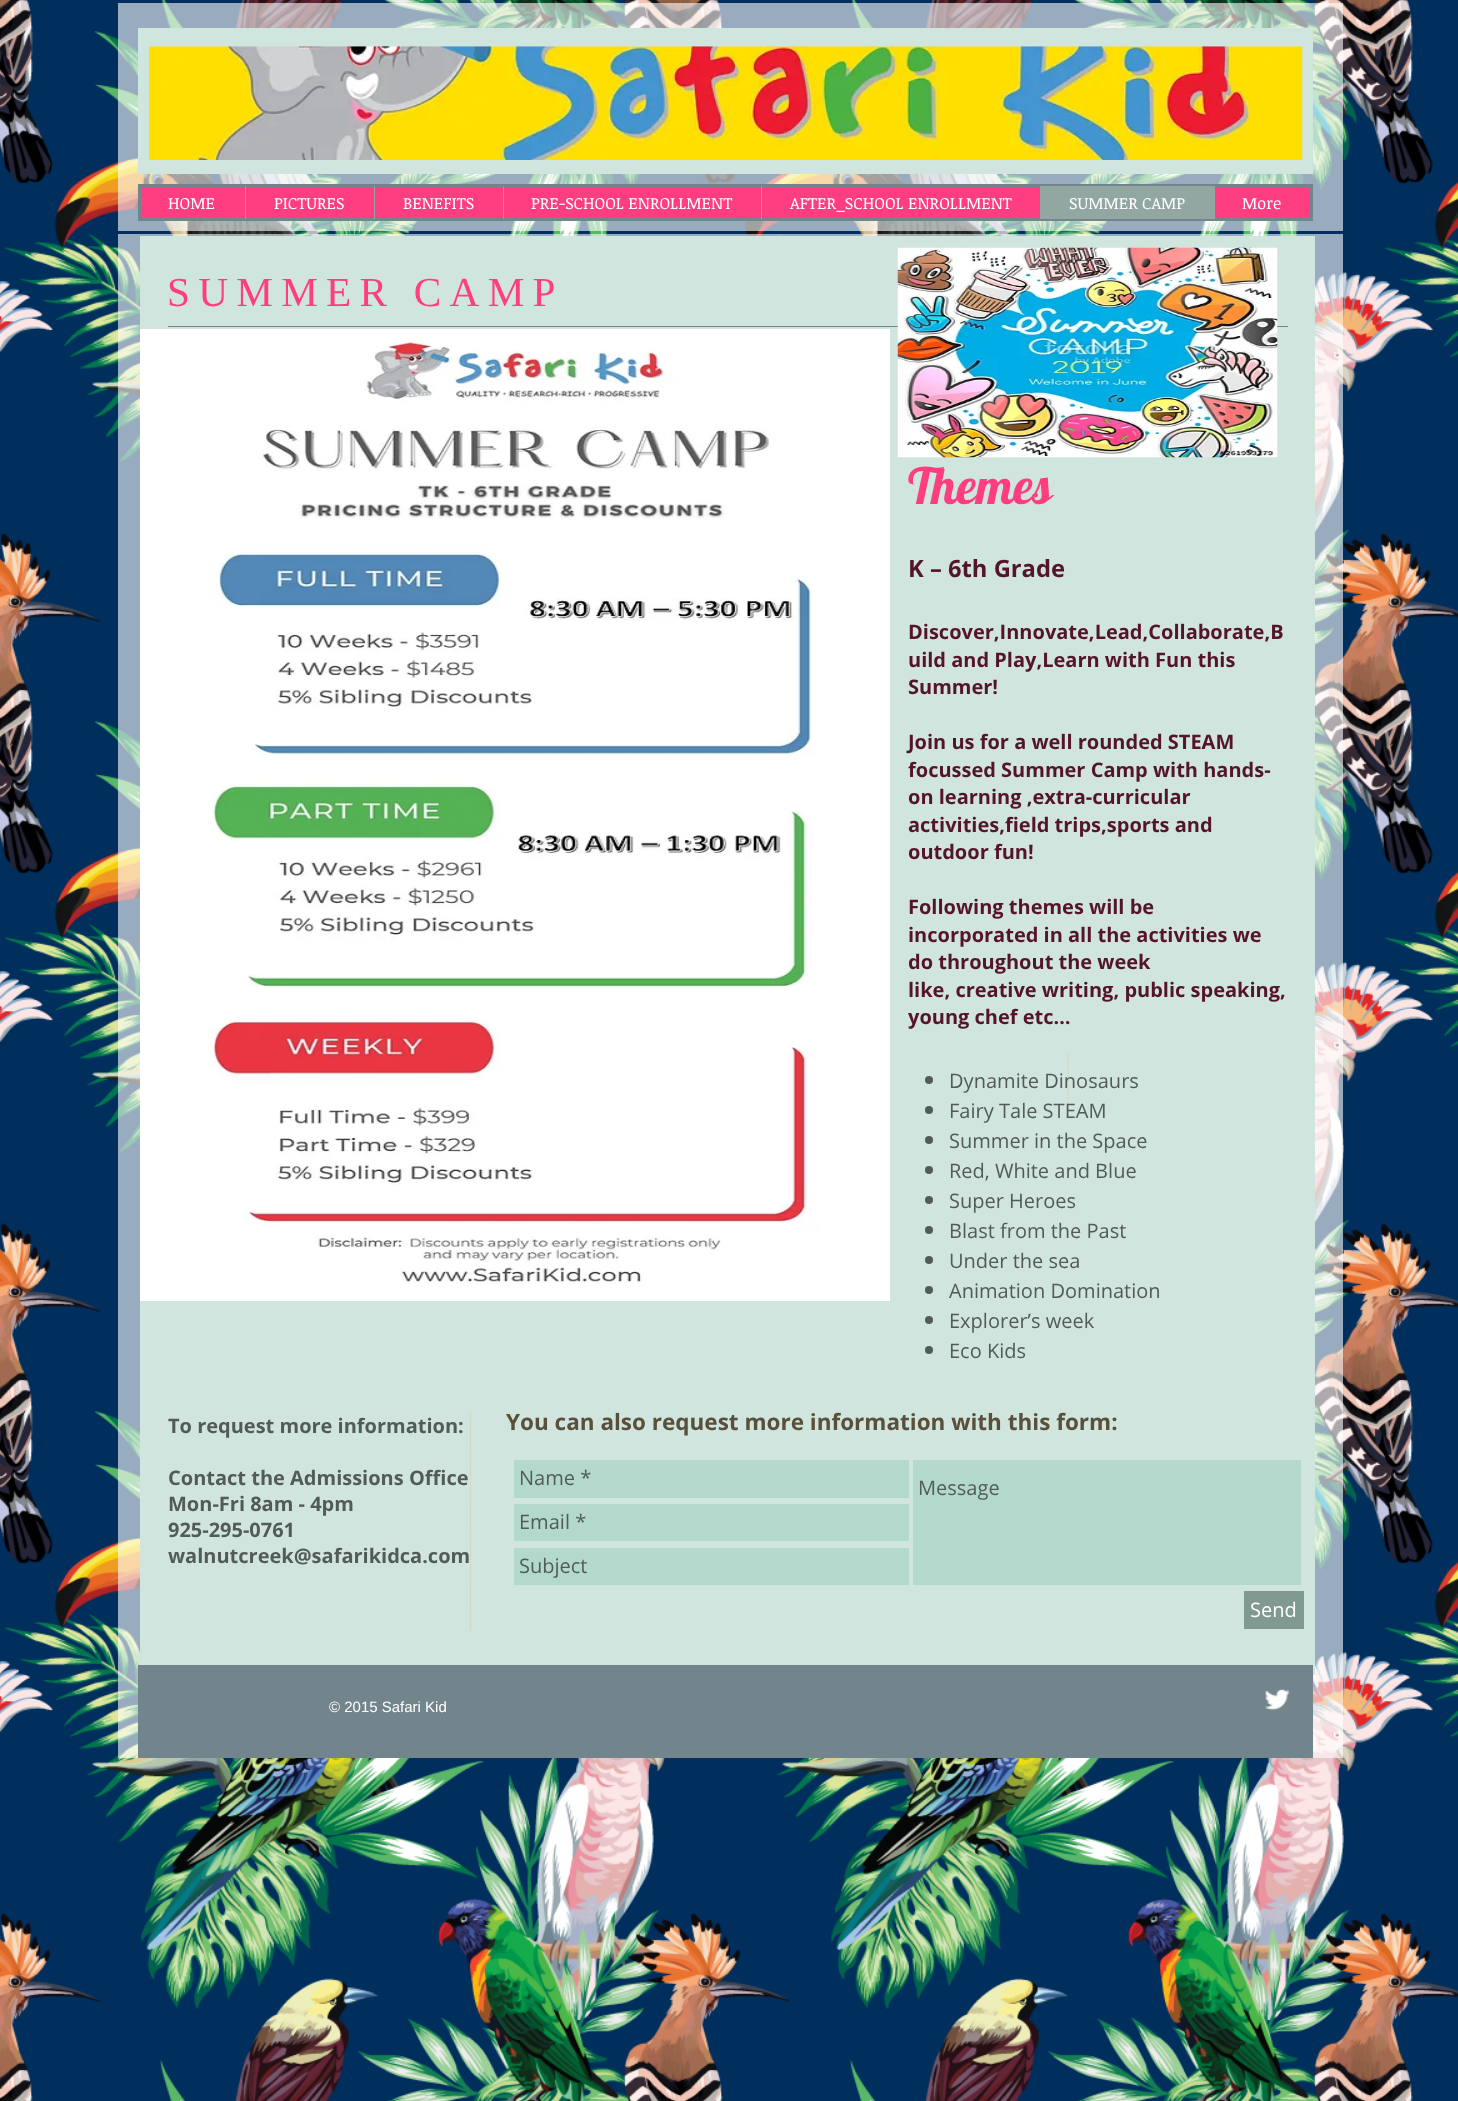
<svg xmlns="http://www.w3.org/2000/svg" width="1458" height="2101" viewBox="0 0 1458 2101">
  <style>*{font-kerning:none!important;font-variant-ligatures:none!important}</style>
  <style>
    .t1 { font: 16.25px Noticia Text; fill: #fff; }
    .t2 { font: 41.25px Liberation Serif; letter-spacing: 8.25px; fill: #ff3d81; }
    .t3 { font: 50px Lobster; fill: #ff3d81; }
    .t4 { font: bold 23.75px Open Sans; fill: #54142b; }
    .t5 { font: bold 20px Open Sans; fill: #54142b; }
    .t6 { font: 20px Open Sans; fill: #535b58; }
    .t7 { font: bold 20px Open Sans; fill: #535b58; }
    .t8 { font: bold 22.5px Open Sans; fill: #5a4f3a; }
    .t9 { font: 20px Open Sans; fill: #fff; }
    .t10 { font: 15px Liberation Sans; fill: #fff; }
  </style>
  <rect width="100%" height="100%" fill="#002e5d"/>
  <image x="0" y="0" width="1458" height="2101" href="images/1.png"/>
  <rect x="118" y="3" width="1225" height="228" fill="#ffffff99"/>
  <rect x="138" y="28" width="1175" height="146" fill="#d0e5de"/>
  <image x="148" y="46" width="1155" height="114" href="images/2.png"/>
  <rect x="139.5" y="185.5" width="1172" height="34" fill="#ff3d81" stroke="#72858c" stroke-width="3"/>
  <text x="168" y="209" class="t1">HOME</text>
  <rect x="245" y="186" width="1" height="33" fill="#92a6a2"/>
  <text x="274" y="209" class="t1">PICTURES</text>
  <rect x="374" y="186" width="1" height="33" fill="#92a6a2"/>
  <text x="403" y="209" class="t1">BENEFITS</text>
  <rect x="503" y="186" width="1" height="33" fill="#92a6a2"/>
  <text x="531" y="209" class="t1">PRE-SCHOOL ENROLLMENT</text>
  <rect x="761" y="186" width="1" height="33" fill="#92a6a2"/>
  <text x="790" y="209" class="t1">AFTER_SCHOOL ENROLLMENT</text>
  <rect x="1040" y="186" width="175" height="33" fill="#92a6a2"/>
  <text x="1069" y="209" class="t1">SUMMER CAMP</text>
  <text x="1242" y="209" class="t1">More</text>
  <rect x="118" y="234" width="1225" height="1441" fill="#ffffff99"/>
  <rect x="140" y="236" width="1175" height="1439" fill="#d0e5de"/>
  <text x="167" y="306" class="t2">SUMMER CAMP</text>
  <rect x="168" y="326" width="1120" height="1" fill="#72858c"/>
  <image x="897" y="247" width="381" height="211" href="images/3.png"/>
  <image x="140" y="329" width="750" height="972" href="images/4.png"/>
  <text x="908" y="504" class="t3">Themes</text>
  <text x="908" y="577" class="t4">K – 6th Grade</text>
  <text x="908" y="639" class="t5">Discover,Innovate,Lead,Collaborate,B</text>
  <text x="908" y="667" class="t5">uild and Play,Learn with Fun this</text>
  <text x="908" y="694" class="t5">Summer!</text>
  <text x="908" y="749" class="t5">Join us for a well rounded STEAM</text>
  <text x="908" y="777" class="t5">focussed Summer Camp with hands-</text>
  <text x="908" y="804" class="t5">on learning ,extra-curricular</text>
  <text x="908" y="832" class="t5">activities,field trips,sports and</text>
  <text x="908" y="859" class="t5">outdoor fun!</text>
  <text x="908" y="914" class="t5">Following themes will be</text>
  <text x="908" y="942" class="t5">incorporated in all the activities we</text>
  <text x="908" y="969" class="t5">do throughout the week</text>
  <text x="908" y="997" class="t5">like, creative writing, public speaking,</text>
  <text x="908" y="1024" class="t5">young chef etc…</text>
  <circle cx="929" cy="1080" r="4" fill="#535b58"/>
  <path d="M1068 1052.5V1110" fill="none" stroke="#daccb3" stroke-width="1.2" stroke-dasharray="1.25 1.25"/>
  <text x="949" y="1088" class="t6">Dynamite Dinosaurs</text>
  <circle cx="929" cy="1110" r="4" fill="#535b58"/>
  <text x="949" y="1118" class="t6">Fairy Tale STEAM</text>
  <circle cx="929" cy="1140" r="4" fill="#535b58"/>
  <text x="949" y="1148" class="t6">Summer in the Space</text>
  <circle cx="929" cy="1170" r="4" fill="#535b58"/>
  <text x="949" y="1178" class="t6">Red, White and Blue</text>
  <circle cx="929" cy="1200" r="4" fill="#535b58"/>
  <text x="949" y="1208" class="t6">Super Heroes</text>
  <circle cx="929" cy="1230" r="4" fill="#535b58"/>
  <text x="949" y="1238" class="t6">Blast from the Past</text>
  <circle cx="929" cy="1260" r="4" fill="#535b58"/>
  <text x="949" y="1268" class="t6">Under the sea</text>
  <circle cx="929" cy="1290" r="4" fill="#535b58"/>
  <text x="949" y="1298" class="t6">Animation Domination</text>
  <circle cx="929" cy="1320" r="4" fill="#535b58"/>
  <text x="949" y="1328" class="t6">Explorer’s week</text>
  <circle cx="929" cy="1350" r="4" fill="#535b58"/>
  <text x="949" y="1358" class="t6">Eco Kids</text>
  <text x="168" y="1433" class="t7">To request more information:</text>
  <text x="168" y="1485" class="t7">Contact the Admissions Office</text>
  <text x="168" y="1511" class="t7">Mon-Fri 8am - 4pm</text>
  <text x="168" y="1537" class="t7">925-295-0761</text>
  <text x="168" y="1563" class="t7">walnutcreek@safarikidca.com</text>
  <path d="M470.5 1414V1631" fill="none" stroke="#daccb3" stroke-width="1.2" stroke-dasharray="1.25 1.25"/>
  <text x="506" y="1430" class="t8">You can also request more information with this form:</text>
  <rect x="514" y="1460" width="395" height="38" fill="#b3d9cc"/>
  <text x="519" y="1485" class="t6">Name *</text>
  <rect x="913" y="1460" width="388" height="125" fill="#b3d9cc"/>
  <text x="918" y="1495" class="t6">Message</text>
  <rect x="514" y="1504" width="395" height="37" fill="#b3d9cc"/>
  <text x="519" y="1529" class="t6">Email *</text>
  <rect x="514" y="1548" width="395" height="37" fill="#b3d9cc"/>
  <text x="519" y="1573" class="t6">Subject</text>
  <rect x="1244" y="1591" width="60" height="38" fill="#809a91"/>
  <text x="1250" y="1617" class="t9">Send</text>
  <rect x="118" y="1675" width="1225" height="83" fill="#ffffff99"/>
  <rect x="138" y="1665" width="1175" height="93" fill="#72858c"/>
  <text x="329" y="1712" class="t10">© 2015 Safari Kid</text>
  <image x="1265" y="1688" width="25" height="23" href="images/5.png"/>
</svg>
